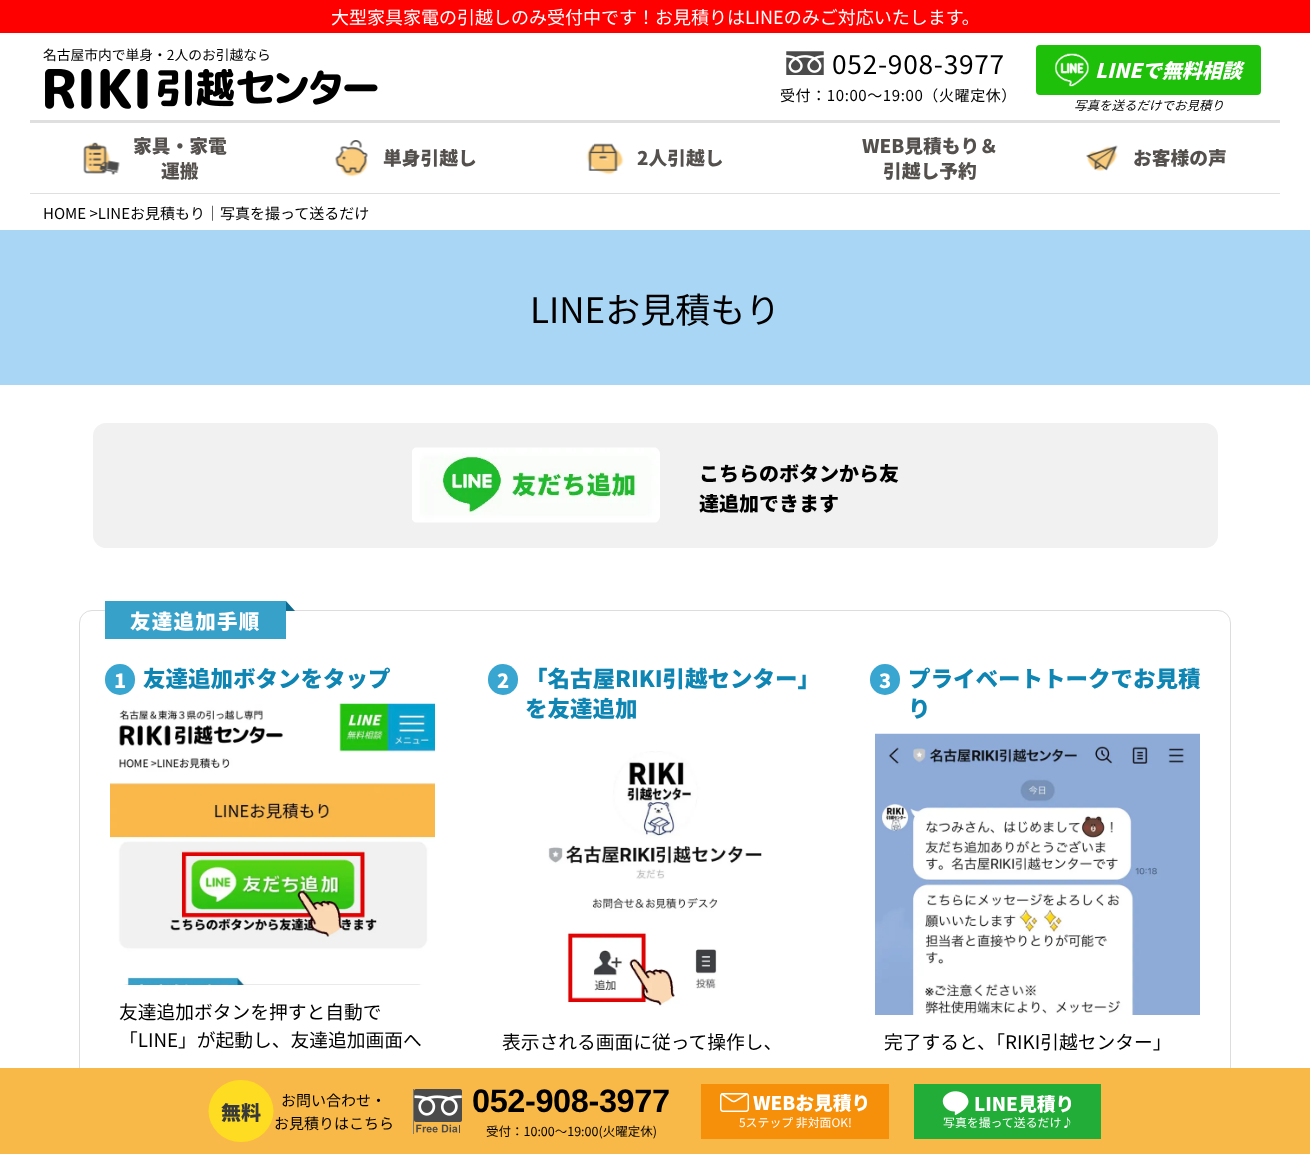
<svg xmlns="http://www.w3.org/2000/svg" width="1310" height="1154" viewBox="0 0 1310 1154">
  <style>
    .t1 { font: 18px Noto Sans JP; fill: #fff; }
    .t2 { font: 13.75px Noto Sans JP; fill: #000; }
    .t3 { font: 26.25px Noto Sans JP; letter-spacing: 0.75px; fill: #000; }
    .t4 { font: 15px Noto Sans JP; letter-spacing: 0.6px; fill: #000; }
    .t5 { font: italic 900 20px Noto Sans JP; fill: #fff; }
    .t6 { font: italic 12.5px Noto Sans JP; fill: #000; }
    .t7 { font: 900 18.75px Noto Sans JP; fill: #54504e; }
    .t8 { font: 15px Noto Sans JP; fill: #000; }
    .t9 { font: 35px Noto Sans JP; fill: #000; }
    .t10 { font: 900 20px Noto Sans JP; fill: #000; }
    .t11 { font: 900 20.5px Noto Sans JP; letter-spacing: 1.25px; fill: #fff; }
    .t12 { font: 900 20px Noto Sans JP; fill: #fff; }
    .t13 { font: 900 22.5px Noto Sans JP; fill: #0e85b3; }
    .t14 { font: 18.75px Noto Sans JP; fill: #000; }
    .t15 { font: 900 20px Noto Sans JP; fill: #38393a; }
    .t16 { font: bold 32.5px Liberation Sans; letter-spacing: -0.4px; fill: #000; }
    .t17 { font: 12.5px Noto Sans JP; fill: #000; }
    .t18 { font: 900 18.75px Noto Sans JP; fill: #fff; }
    .t19 { font: 11.9px Noto Sans JP; fill: #fff; }
  </style>
  <rect width="100%" height="100%" fill="#fff"/>
  <rect x="0" y="0" width="1310" height="33" fill="#f00"/>
  <text x="331" y="24" class="t1">大型家具家電の引越しのみ受付中です！お見積りはLINEのみご対応いたします。</text>
  <text x="43" y="60" class="t2">名古屋市内で単身・2人のお引越なら</text>
  <image x="45" y="69" width="333" height="40" href="images/1.png"/>
  <image x="786" y="51" width="38" height="24" href="images/2.png"/>
  <text x="832" y="74" class="t3">052-908-3977</text>
  <text x="780" y="101" class="t4">受付：10:00～19:00（火曜定休）</text>
  <rect x="1036" y="45" width="225" height="50" rx="4" fill="#1fc00a"/>
  <image x="1055" y="53" width="34" height="34" href="images/3.png"/>
  <text x="1095" y="78" class="t5">LINEで無料相談</text>
  <text x="1074" y="110" class="t6">写真を送るだけでお見積り</text>
  <rect x="30" y="120" width="1250" height="3" fill="#e0dfdf"/>
  <rect x="30" y="193" width="1250" height="1" fill="#e0dfdf"/>
  <image x="83" y="142" width="37" height="33" href="images/4.png"/>
  <text x="133" y="153" class="t7">家具・家電</text>
  <text x="161" y="178" class="t7">運搬</text>
  <image x="335" y="140" width="33" height="37" href="images/5.png"/>
  <text x="383" y="165" class="t7">単身引越し</text>
  <image x="586" y="143" width="38" height="32" href="images/6.png"/>
  <text x="637" y="165" class="t7">2人引越し</text>
  <text x="862" y="153" class="t7">WEB見積もり＆</text>
  <text x="883" y="178" class="t7">引越し予約</text>
  <image x="1086" y="145" width="32" height="26" href="images/7.png"/>
  <text x="1133" y="165" class="t7">お客様の声</text>
  <text x="43" y="219" class="t8">HOME &gt;LINEお見積もり｜写真を撮って送るだけ</text>
  <rect x="0" y="230" width="1310" height="155" fill="#a9d6f5"/>
  <text x="530" y="323" class="t9">LINEお見積もり</text>
  <rect x="93" y="423" width="1125" height="125" rx="13" fill="#f1f1f1"/>
  <image x="412" y="447" width="248" height="76" href="images/8.png"/>
  <text x="699" y="481" class="t10">こちらのボタンから友</text>
  <text x="699" y="511" class="t10">達追加できます</text>
  <rect x="79.5" y="610.5" width="1151" height="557" rx="12.5" fill="none" stroke="#ddd"/>
  <rect x="105" y="601" width="181" height="38" fill="#37a1ca"/>
  <path d="M286 611V601L295 611Z" fill="#0b6b90"/>
  <text x="130" y="629" class="t11">友達追加手順</text>
  <rect x="105" y="664" width="30" height="31" rx="15" fill="#38a6d0"/>
  <text x="114" y="688" class="t12">1</text>
  <text x="143" y="687" class="t13">友達追加ボタンをタップ</text>
  <image x="110" y="703" width="325" height="282" href="images/9.png"/>
  <text x="119" y="1019" class="t14">友達追加ボタンを押すと自動で</text>
  <text x="119" y="1047" class="t14">「LINE」が起動し、友達追加画面へ</text>
  <rect x="488" y="664" width="30" height="31" rx="15" fill="#38a6d0"/>
  <text x="497" y="688" class="t12">2</text>
  <text x="525" y="687" class="t13">「名古屋RIKI引越センター」</text>
  <text x="525" y="717" class="t13">を友達追加</text>
  <image x="548" y="751" width="214" height="256" href="images/10.png"/>
  <text x="502" y="1049" class="t14">表示される画面に従って操作し、</text>
  <rect x="870" y="664" width="30" height="31" rx="15" fill="#38a6d0"/>
  <text x="879" y="688" class="t12">3</text>
  <text x="908" y="687" class="t13">プライベートトークでお見積</text>
  <text x="908" y="717" class="t13">り</text>
  <image x="875" y="733" width="325" height="282" href="images/11.png"/>
  <text x="884" y="1049" class="t14">完了すると、「RIKI引越センター」</text>
  <rect x="0" y="1068" width="1310" height="86" fill="#f9b949"/>
  <ellipse cx="241" cy="1111" rx="32.5" ry="31" fill="#fedc22"/>
  <text x="221" y="1120" class="t15">無料</text>
  <rect x="413" y="1089" width="1" height="45" fill="#797979"/>
  <text x="281" y="1106" class="t8">お問い合わせ・</text>
  <text x="274" y="1129" class="t8">お見積りはこちら</text>
  <image x="414" y="1089" width="48" height="44" href="images/12.png"/>
  <text x="472" y="1112" class="t16">052-908-3977</text>
  <text x="486" y="1136" class="t17">受付：10:00～19:00(火曜定休)</text>
  <rect x="701" y="1084" width="188" height="55" fill="#f68f09"/>
  <image x="720" y="1093" width="29" height="19" href="images/13.png"/>
  <text x="753" y="1110" class="t18">WEBお見積り</text>
  <text x="739" y="1127" class="t19">5ステップ 非対面OK!</text>
  <rect x="914" y="1084" width="187" height="55" fill="#22ac38"/>
  <image x="942" y="1091" width="27" height="24" href="images/14.png"/>
  <text x="974" y="1111" class="t18">LINE見積り</text>
  <text x="943" y="1127" class="t19">写真を撮って送るだけ♪</text>
</svg>
